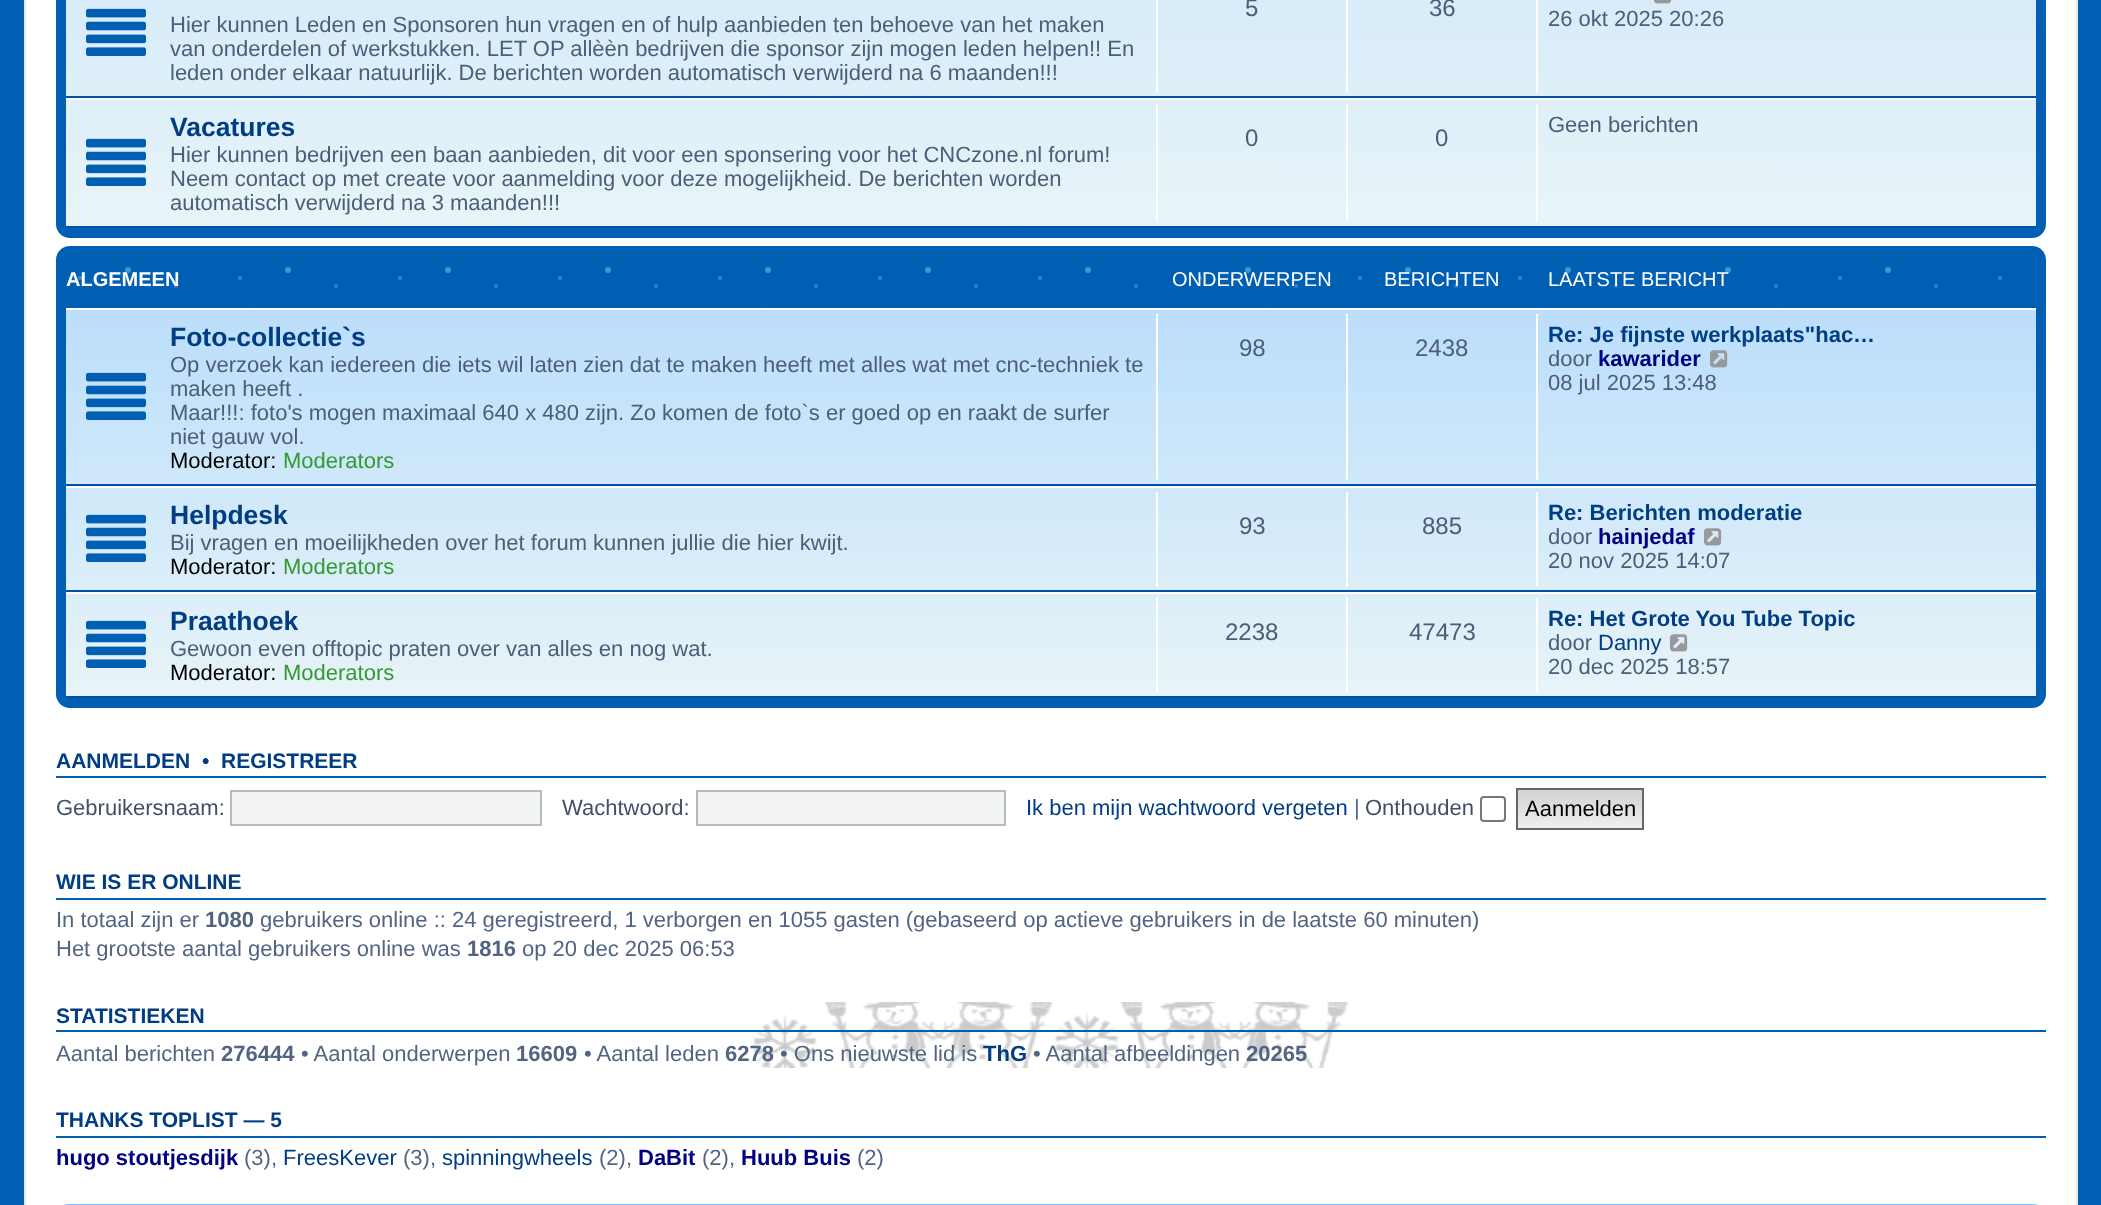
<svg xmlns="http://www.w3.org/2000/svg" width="2101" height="1205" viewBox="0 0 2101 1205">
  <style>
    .t1 { font: 22px Liberation Sans; fill: #4c5d77; }
    .t2 { font: 24px Liberation Sans; fill: #4c5d77; }
    .t3 { font: bold 26.5px Liberation Sans; fill: #003d82; }
    .t4 { font: bold 20px Liberation Sans; fill: #fff; }
    .t5 { font: 20px Liberation Sans; fill: #fff; }
    .t6 { font: 22px Liberation Sans; fill: #000; }
    .t7 { font: 22px Liberation Sans; fill: #393; }
    .t8 { font: bold 22px Liberation Sans; fill: #003d82; }
    .t9 { font: bold 22px Liberation Sans; fill: #000080; }
    .t10 { font: 22px Liberation Sans; fill: #003d82; }
    .t11 { font: bold 21px Liberation Sans; fill: #003d82; }
    .t12 { font: 22px Liberation Sans; fill: #425067; }
    .t13 { font: 22px Liberation Sans; fill: #536482; }
    .t14 { font: bold 22px Liberation Sans; fill: #536482; }
  </style>
  <defs>
    <linearGradient id="g1" gradientUnits="userSpaceOnUse" x1="1051" y1="-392" x2="1051" y2="228"><stop offset="0" stop-color="#bbdefb"/><stop offset="1" stop-color="#e8f4f8"/></linearGradient>
    <linearGradient id="g2" gradientUnits="userSpaceOnUse" x1="1051" y1="308" x2="1051" y2="698"><stop offset="0" stop-color="#bbdefb"/><stop offset="1" stop-color="#e8f4f8"/></linearGradient>
    <linearGradient id="g3" gradientUnits="userSpaceOnUse" x1="1580" y1="790" x2="1580" y2="828"><stop offset="0" stop-color="#d2d2d2"/><stop offset="1" stop-color="#efefef"/></linearGradient>
  </defs>
  <rect width="100%" height="100%" fill="#005fb3"/>
  <rect x="25" y="-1" width="2052" height="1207" fill="#fff" stroke="#e6e9ed" stroke-width="2"/>
  <rect x="56" y="-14" width="1990" height="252" rx="14" fill="#005fb3"/>
  <rect x="66" y="0" width="1970" height="226" fill="url(#g1)"/>
  <rect x="66" y="96" width="1970" height="2" fill="#0051a8"/>
  <image x="86" y="8" width="60" height="48" href="images/1.png"/>
  <text x="170" y="32" class="t1">Hier kunnen Leden en Sponsoren hun vragen en of hulp aanbieden ten behoeve van het maken</text>
  <text x="170" y="56" class="t1">van onderdelen of werkstukken. LET OP allèèn bedrijven die sponsor zijn mogen leden helpen!! En</text>
  <text x="170" y="80" class="t1">leden onder elkaar natuurlijk. De berichten worden automatisch verwijderd na 6 maanden!!!</text>
  <rect x="1156" y="0" width="2" height="92" fill="#fff"/>
  <text x="1245" y="16" class="t2">5</text>
  <rect x="1346" y="0" width="2" height="92" fill="#fff"/>
  <text x="1429" y="16" class="t2">36</text>
  <rect x="1536" y="0" width="2" height="92" fill="#fff"/>
  <image x="1654" y="0" width="18" height="4" href="images/2.png"/>
  <text x="1548" y="26" class="t1">26 okt 2025 20:26</text>
  <rect x="66" y="98" width="1970" height="2" fill="#fff"/>
  <rect x="66" y="226" width="1970" height="2" fill="#0051a8"/>
  <image x="86" y="138" width="60" height="48" href="images/3.png"/>
  <text x="170" y="136" class="t3">Vacatures</text>
  <text x="170" y="162" class="t1">Hier kunnen bedrijven een baan aanbieden, dit voor een sponsering voor het CNCzone.nl forum!</text>
  <text x="170" y="186" class="t1">Neem contact op met create voor aanmelding voor deze mogelijkheid. De berichten worden</text>
  <text x="170" y="210" class="t1">automatisch verwijderd na 3 maanden!!!</text>
  <rect x="1156" y="104" width="2" height="118" fill="#fff"/>
  <text x="1245" y="146" class="t2">0</text>
  <rect x="1346" y="104" width="2" height="118" fill="#fff"/>
  <text x="1435" y="146" class="t2">0</text>
  <rect x="1536" y="104" width="2" height="118" fill="#fff"/>
  <text x="1548" y="132" class="t1">Geen berichten</text>
  <rect x="56" y="246" width="1990" height="462" rx="14" fill="#005fb3"/>
  <path d="M176 286H1936.4" fill="none" stroke="#337fc2" stroke-width="4" stroke-linecap="round" stroke-dasharray="0 160"/>
  <path d="M128 270H1888.4" fill="none" stroke="#4d8fca" stroke-width="6" stroke-linecap="round" stroke-dasharray="0 160"/>
  <path d="M80 278H2000.4" fill="none" stroke="#4087c6" stroke-width="4" stroke-linecap="round" stroke-dasharray="0 160"/>
  <text x="66" y="286" class="t4">ALGEMEEN</text>
  <text x="1172" y="286" class="t5">ONDERWERPEN</text>
  <text x="1384" y="286" class="t5">BERICHTEN</text>
  <text x="1548" y="286" class="t5">LAATSTE BERICHT</text>
  <rect x="66" y="310" width="1970" height="386" fill="url(#g2)"/>
  <rect x="66" y="308" width="1970" height="2" fill="#fff"/>
  <rect x="66" y="484" width="1970" height="2" fill="#0051a8"/>
  <text x="170" y="346" class="t3">Foto-collectie`s</text>
  <text x="170" y="372" class="t1">Op verzoek kan iedereen die iets wil laten zien dat te maken heeft met alles wat met cnc-techniek te</text>
  <text x="170" y="396" class="t1">maken heeft .</text>
  <text x="170" y="420" class="t1">Maar!!!: foto's mogen maximaal 640 x 480 zijn. Zo komen de foto`s er goed op en raakt de surfer</text>
  <text x="170" y="444" class="t1">niet gauw vol.</text>
  <text x="170" y="468" class="t6">Moderator:</text>
  <text x="283" y="468" class="t7">Moderators</text>
  <rect x="1156" y="314" width="2" height="166" fill="#fff"/>
  <text x="1239" y="356" class="t2">98</text>
  <rect x="1346" y="314" width="2" height="166" fill="#fff"/>
  <text x="1415" y="356" class="t2">2438</text>
  <rect x="1536" y="314" width="2" height="166" fill="#fff"/>
  <text x="1548" y="342" class="t8">Re: Je fijnste werkplaats"hac…</text>
  <text x="1548" y="366" class="t1">door</text>
  <text x="1598" y="366" class="t9">kawarider</text>
  <image x="1710" y="350" width="18" height="18" href="images/4.png"/>
  <text x="1548" y="390" class="t1">08 jul 2025 13:48</text>
  <image x="86" y="372" width="60" height="48" href="images/5.png"/>
  <rect x="66" y="486" width="1970" height="2" fill="#fff"/>
  <rect x="66" y="590" width="1970" height="2" fill="#0051a8"/>
  <image x="86" y="514" width="60" height="48" href="images/6.png"/>
  <text x="170" y="524" class="t3">Helpdesk</text>
  <text x="170" y="550" class="t1">Bij vragen en moeilijkheden over het forum kunnen jullie die hier kwijt.</text>
  <text x="170" y="574" class="t6">Moderator:</text>
  <text x="283" y="574" class="t7">Moderators</text>
  <rect x="1156" y="492" width="2" height="94" fill="#fff"/>
  <text x="1239" y="534" class="t2">93</text>
  <rect x="1346" y="492" width="2" height="94" fill="#fff"/>
  <text x="1422" y="534" class="t2">885</text>
  <rect x="1536" y="492" width="2" height="94" fill="#fff"/>
  <text x="1548" y="520" class="t8">Re: Berichten moderatie</text>
  <text x="1548" y="544" class="t1">door</text>
  <text x="1598" y="544" class="t9">hainjedaf</text>
  <image x="1704" y="528" width="18" height="18" href="images/7.png"/>
  <text x="1548" y="568" class="t1">20 nov 2025 14:07</text>
  <rect x="66" y="592" width="1970" height="2" fill="#fff"/>
  <rect x="66" y="696" width="1970" height="2" fill="#0051a8"/>
  <image x="86" y="620" width="60" height="48" href="images/8.png"/>
  <text x="170" y="630" class="t3">Praathoek</text>
  <text x="170" y="656" class="t1">Gewoon even offtopic praten over van alles en nog wat.</text>
  <text x="170" y="680" class="t6">Moderator:</text>
  <text x="283" y="680" class="t7">Moderators</text>
  <rect x="1156" y="598" width="2" height="94" fill="#fff"/>
  <text x="1225" y="640" class="t2">2238</text>
  <rect x="1346" y="598" width="2" height="94" fill="#fff"/>
  <text x="1409" y="640" class="t2">47473</text>
  <rect x="1536" y="598" width="2" height="94" fill="#fff"/>
  <text x="1548" y="626" class="t8">Re: Het Grote You Tube Topic</text>
  <text x="1548" y="650" class="t1">door</text>
  <text x="1598" y="650" class="t10">Danny</text>
  <image x="1670" y="634" width="18" height="18" href="images/9.png"/>
  <text x="1548" y="674" class="t1">20 dec 2025 18:57</text>
  <rect x="56" y="776" width="1990" height="2" fill="#005fb3"/>
  <text x="56" y="768" class="t11">AANMELDEN</text>
  <text x="202" y="768" class="t11">•</text>
  <text x="221" y="768" class="t11">REGISTREER</text>
  <text x="56" y="815" class="t12">Gebruikersnaam:</text>
  <rect x="231" y="791" width="310" height="34" fill="#f2f3f3" stroke="#b4bac0" stroke-width="2"/>
  <text x="562" y="815" class="t12">Wachtwoord:</text>
  <rect x="697" y="791" width="308" height="34" fill="#f2f3f3" stroke="#b4bac0" stroke-width="2"/>
  <text x="1026" y="815" class="t10">Ik ben mijn wachtwoord vergeten</text>
  <text x="1354" y="815" class="t13">|</text>
  <text x="1365" y="815" class="t12">Onthouden</text>
  <rect x="1481" y="797" width="24" height="24" rx="3" fill="none" stroke="#767676" stroke-width="2"/>
  <rect x="1518" y="790" width="124" height="38" fill="url(#g3)"/>
  <rect x="1517" y="789" width="126" height="40" fill="none" stroke="#666" stroke-width="2"/>
  <text x="1525" y="816" class="t6">Aanmelden</text>
  <rect x="56" y="898" width="1990" height="2" fill="#005fb3"/>
  <text x="56" y="889" class="t11">WIE IS ER ONLINE</text>
  <text x="56" y="927" class="t13">In totaal zijn er</text>
  <text x="205" y="927" class="t14">1080</text>
  <text x="260" y="927" class="t13">gebruikers online :: 24 geregistreerd, 1 verborgen en 1055 gasten (gebaseerd op actieve gebruikers in de laatste 60 minuten)</text>
  <text x="56" y="956" class="t13">Het grootste aantal gebruikers online was</text>
  <text x="467" y="956" class="t14">1816</text>
  <text x="522" y="956" class="t13">op 20 dec 2025 06:53</text>
  <image x="753" y="1002" width="596" height="66" href="images/10.png"/>
  <rect x="56" y="1030" width="1990" height="2" fill="#005fb3"/>
  <text x="56" y="1023" class="t11">STATISTIEKEN</text>
  <text x="56" y="1061" class="t13">Aantal berichten</text>
  <text x="221" y="1061" class="t14">276444</text>
  <text x="301" y="1061" class="t13">• Aantal onderwerpen</text>
  <text x="516" y="1061" class="t14">16609</text>
  <text x="584" y="1061" class="t13">• Aantal leden</text>
  <text x="725" y="1061" class="t14">6278</text>
  <text x="780" y="1061" class="t13">• Ons nieuwste lid is</text>
  <text x="983" y="1061" class="t8">ThG</text>
  <text x="1033" y="1061" class="t13">• Aantal afbeeldingen</text>
  <text x="1246" y="1061" class="t14">20265</text>
  <rect x="56" y="1136" width="1990" height="2" fill="#005fb3"/>
  <text x="56" y="1127" class="t11">THANKS TOPLIST — 5</text>
  <text x="56" y="1165" class="t9">hugo stoutjesdijk</text>
  <text x="244" y="1165" class="t13">(3),</text>
  <text x="283" y="1165" class="t10">FreesKever</text>
  <text x="403" y="1165" class="t13">(3),</text>
  <text x="442" y="1165" class="t10">spinningwheels</text>
  <text x="599" y="1165" class="t13">(2),</text>
  <text x="638" y="1165" class="t9">DaBit</text>
  <text x="702" y="1165" class="t13">(2),</text>
  <text x="741" y="1165" class="t9">Huub Buis</text>
  <text x="857" y="1165" class="t13">(2)</text>
  <rect x="57" y="1205" width="1988" height="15" rx="13" fill="none" stroke="#80c3ff" stroke-width="2"/>
</svg>
